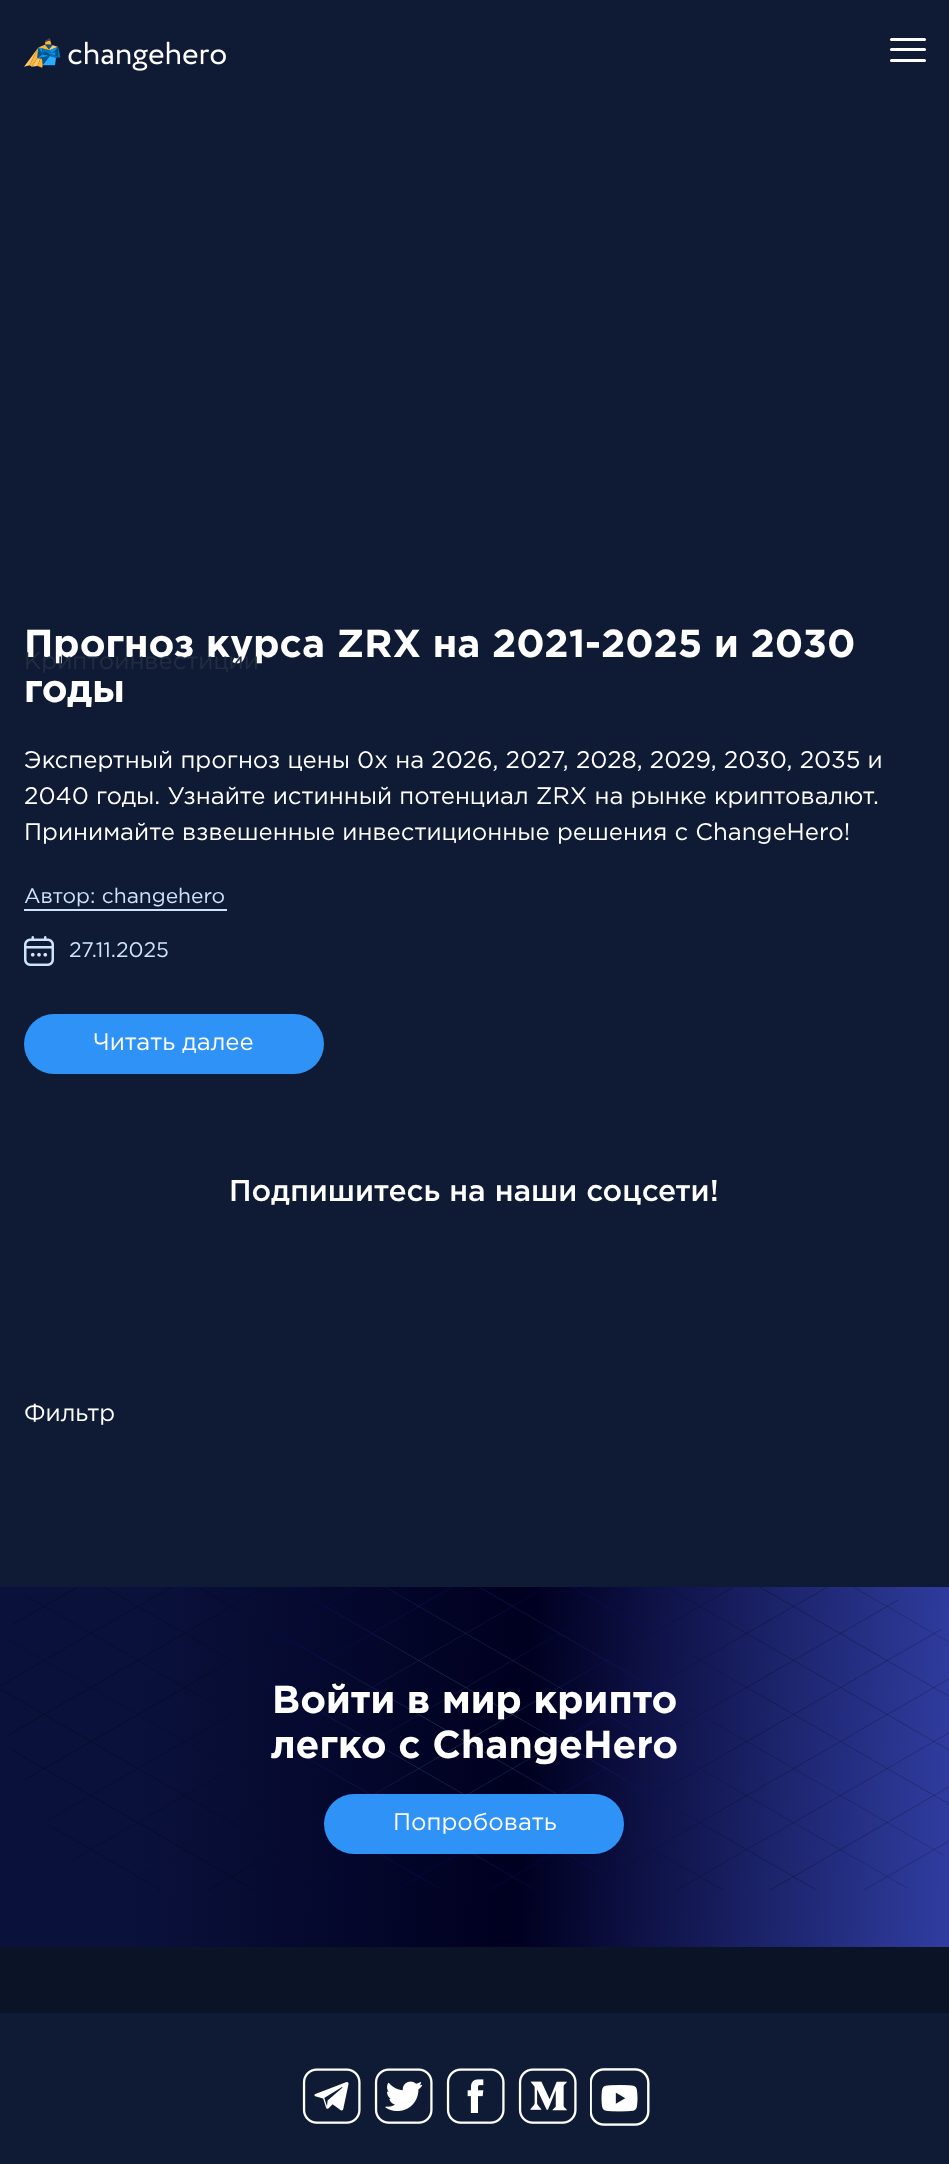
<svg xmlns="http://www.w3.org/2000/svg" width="949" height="2164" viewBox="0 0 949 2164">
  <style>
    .t1 { font: bold 39px Gotham; fill: #fff; }
    .t2 { font: 24px Gotham; fill: #fff; }
    .t3 { font: 21px Gotham; fill: #cee4fa; }
    .t4 { font: 500 30px Gotham; fill: #fff; }
    .t5 { font: 24px Gotham; fill: #222d44; }
  </style>
  <defs>
    <linearGradient id="g1" gradientUnits="userSpaceOnUse" x1="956" y1="1787" x2="-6.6" y2="1747"><stop offset="0.01" stop-color="#2f3c9e"/><stop offset="0.45" stop-color="#000020"/><stop offset="0.85" stop-color="#0a113b"/></linearGradient>
  </defs>
  <rect width="100%" height="100%" fill="#0f1b34"/>
  <text x="24" y="657" class="t1">Прогноз курса ZRX на 2021-2025 и 2030</text>
  <text x="24" y="702" class="t1">годы</text>
  <text x="24" y="768" class="t2">Экспертный прогноз цены 0x на 2026, 2027, 2028, 2029, 2030, 2035 и</text>
  <text x="24" y="804" class="t2">2040 годы. Узнайте истинный потенциал ZRX на рынке криптовалют.</text>
  <text x="24" y="840" class="t2">Принимайте взвешенные инвестиционные решения с ChangeHero!</text>
  <text x="24" y="903" class="t3">Автор: changehero</text>
  <rect x="24" y="909" width="203" height="2" fill="#cee4fa"/>
  <image x="24" y="936" width="30" height="30" href="images/1.png"/>
  <text x="69" y="957" class="t3">27.11.2025</text>
  <rect x="24" y="1014" width="300" height="60" rx="30" fill="#2f92f6"/>
  <text x="93" y="1050" class="t2">Читать далее</text>
  <text x="229" y="1201" class="t4">Подпишитесь на наши соцсети!</text>
  <text x="24" y="1421" class="t2">Фильтр</text>
  <image x="24" y="38" width="202" height="33" href="images/2.png"/>
  <rect x="890" y="59" width="36" height="3" rx="1.5" fill="#fff"/>
  <rect x="890" y="38" width="36" height="3" rx="1.5" fill="#fff"/>
  <rect x="890" y="48" width="36" height="3" rx="1.5" fill="#fff"/>
  <text x="24" y="669" class="t5">Криптоинвестиции</text>
  <rect x="0" y="1587" width="949" height="360" fill="url(#g1)"/>
  <image x="0" y="1587" width="949" height="303" href="images/3.png"/>
  <text x="272" y="1713" class="t1">Войти в мир крипто</text>
  <text x="271" y="1758" class="t1">легко с ChangeHero</text>
  <rect x="324" y="1794" width="300" height="60" rx="30" fill="#2f92f6"/>
  <text x="393" y="1830" class="t2">Попробовать</text>
  <rect x="0" y="1947" width="949" height="66" fill="#0b1427"/>
  <image x="302" y="2068" width="59" height="56" href="images/4.png"/>
  <image x="374" y="2068" width="59" height="56" href="images/5.png"/>
  <image x="446" y="2068" width="59" height="56" href="images/6.png"/>
  <image x="518" y="2068" width="59" height="56" href="images/7.png"/>
  <image x="590" y="2068" width="60" height="58" href="images/8.png"/>
</svg>
